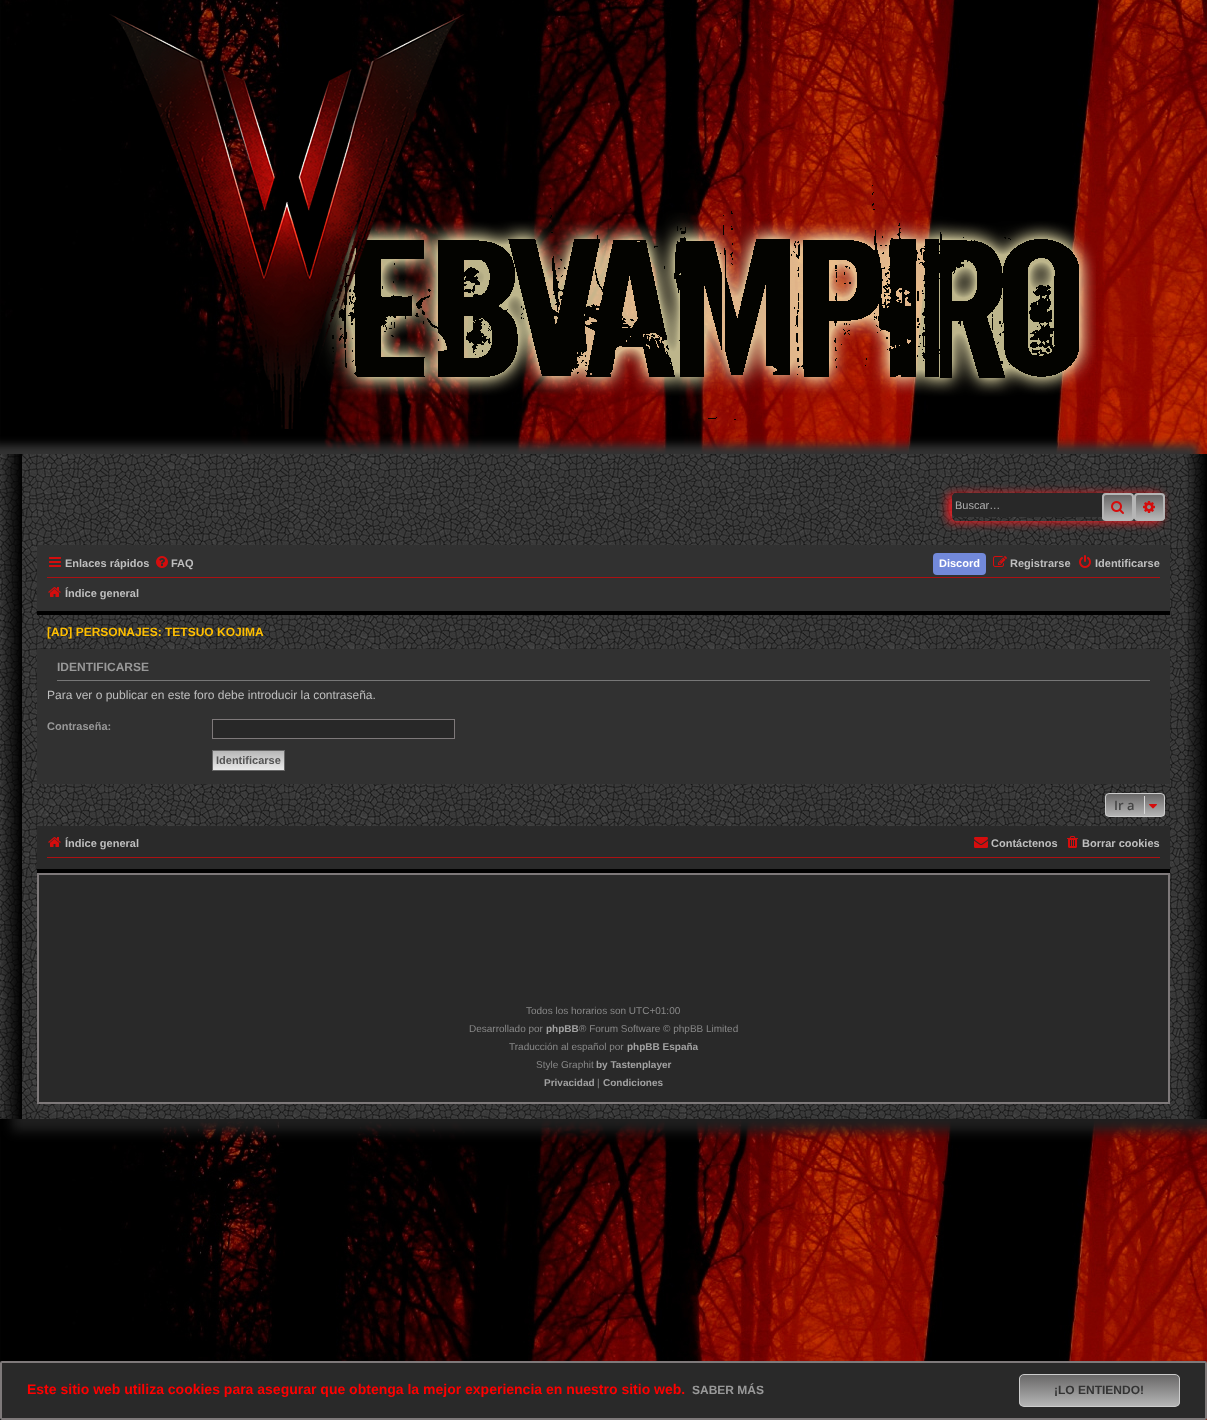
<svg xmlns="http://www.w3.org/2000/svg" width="1207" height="1420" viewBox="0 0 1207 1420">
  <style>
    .t1 { font: 11px Liberation Sans; fill: #adadad; }
    .t2 { font: bold 11px Liberation Sans; fill: #bfbfbf; }
    .t3 { font: bold 11px Liberation Sans; fill: #fff; }
    .t4 { font: bold 12px Liberation Sans; fill: #ffbf00; }
    .t5 { font: bold 12px Liberation Sans; fill: #999; }
    .t6 { font: 12px Liberation Sans; fill: #bfbfbf; }
    .t7 { font: bold 11px Liberation Sans; fill: #999; }
    .t8 { font: bold 11px Liberation Sans; fill: #555; }
    .t9 { font: 600 13px Open Sans; fill: #444; }
    .t10 { font: 10px Liberation Sans; fill: #888; }
    .t11 { font: bold 10px Liberation Sans; fill: #a2a2a2; }
    .t12 { font: bold 14px Liberation Sans; fill: #f00; }
    .t13 { font: bold 12px Liberation Sans; fill: #333; }
  </style>
  <defs>
    <clipPath id="clip1"><path d="M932 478H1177V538H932ZM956 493H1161C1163 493 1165 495 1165 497V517C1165 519 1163 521 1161 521H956C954 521 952 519 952 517V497C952 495 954 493 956 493Z" clip-rule="evenodd"/></clipPath>
    <clipPath id="clip2"><rect x="1102" y="493" width="32" height="28" rx="4"/></clipPath>
    <linearGradient id="g1" gradientUnits="userSpaceOnUse" x1="1118" y1="495" x2="1118" y2="519"><stop offset="0" stop-color="#696868"/><stop offset="1" stop-color="#b5b5b5"/></linearGradient>
    <clipPath id="clip3"><rect x="1134" y="493" width="31" height="28" rx="4"/></clipPath>
    <linearGradient id="g2" gradientUnits="userSpaceOnUse" x1="1150" y1="495" x2="1150" y2="519"><stop offset="0" stop-color="#696868"/><stop offset="1" stop-color="#b5b5b5"/></linearGradient>
    <linearGradient id="g3" gradientUnits="userSpaceOnUse" x1="249" y1="751" x2="249" y2="770"><stop offset="0" stop-color="#b7b7b7"/><stop offset="1" stop-color="#e9e9e9"/></linearGradient>
    <clipPath id="clip4"><rect x="1105" y="793" width="60" height="24" rx="4"/></clipPath>
    <linearGradient id="g4" gradientUnits="userSpaceOnUse" x1="1135" y1="794" x2="1135" y2="816"><stop offset="0" stop-color="#696868"/><stop offset="1" stop-color="#b5b5b5"/></linearGradient>
    <clipPath id="clip5"><rect x="1019" y="1374" width="161" height="33" rx="5"/></clipPath>
    <linearGradient id="g5" gradientUnits="userSpaceOnUse" x1="1100" y1="1375" x2="1100" y2="1406"><stop offset="0" stop-color="#696868"/><stop offset="1" stop-color="#b5b5b5"/></linearGradient>
  </defs>
  <rect width="100%" height="100%" fill="#fff"/>
  <image x="0" y="1141" width="1207" height="279" href="images/1.png"/>
  <image x="0" y="0" width="1207" height="1141" href="images/2.png"/>
  <image x="109" y="14" width="987" height="415" href="images/3.png"/>
  <rect x="12" y="466" width="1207" height="665" fill="#1f1f1f" filter="blur(6px)"/>
  <rect x="-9" y="445" width="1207" height="665" fill="#333" filter="blur(4.5px)"/>
  <image x="0" y="454" width="1207" height="665" href="images/4.png"/>
  <image x="1" y="454" width="1206" height="665" href="images/5.png"/>
  <g clip-path="url(#clip1)">
    <rect x="948" y="494" width="213" height="28" rx="4" fill="#ff1c23" filter="blur(5px)"/>
  </g>
  <path d="M956 493H1102V517H956C954 517 952 515 952 513V497C952 495 954 493 956 493Z" fill="#282828"/>
  <text x="955" y="509" class="t1">Buscar…</text>
  <g clip-path="url(#clip2)">
    <rect x="1102" y="495" width="32" height="24" fill="url(#g1)"/>
  </g>
  <rect x="1103" y="494" width="30" height="26" rx="3" fill="none" stroke="#b5b5b5" stroke-width="2"/>
  <image x="1111" y="501" width="13" height="13" href="images/6.png"/>
  <g clip-path="url(#clip3)">
    <rect x="1134" y="495" width="31" height="24" fill="url(#g2)"/>
  </g>
  <rect x="1135" y="494" width="29" height="26" rx="3" fill="none" stroke="#b5b5b5" stroke-width="2"/>
  <image x="1143" y="501" width="12" height="12" href="images/7.png"/>
  <rect x="37" y="545" width="1133" height="66" fill="#313131"/>
  <rect x="37" y="611" width="1133" height="4" fill="#000"/>
  <image x="49" y="557" width="12" height="10" href="images/8.png"/>
  <text x="65" y="567" class="t2">Enlaces rápidos</text>
  <image x="156" y="556" width="12" height="12" href="images/9.png"/>
  <text x="171" y="567" class="t2">FAQ</text>
  <rect x="933" y="553" width="53" height="22" rx="4" fill="#7289da"/>
  <text x="939" y="567" class="t3">Discord</text>
  <image x="993" y="556" width="14" height="11" href="images/10.png"/>
  <text x="1010" y="567" class="t2">Registrarse</text>
  <image x="1079" y="555" width="12" height="13" href="images/11.png"/>
  <text x="1095" y="567" class="t2">Identificarse</text>
  <rect x="47" y="577" width="1113" height="1" fill="#ab1012"/>
  <image x="48" y="587" width="13" height="10" href="images/12.png"/>
  <text x="65" y="597" class="t2">Índice general</text>
  <text x="47" y="636" class="t4">[AD] PERSONAJES: TETSUO KOJIMA</text>
  <rect x="37" y="649" width="1133" height="135" fill="#313131"/>
  <rect x="57" y="680" width="1093" height="1" fill="#777"/>
  <text x="57" y="671" class="t5">IDENTIFICARSE</text>
  <text x="47" y="699" class="t6">Para ver o publicar en este foro debe introducir la contraseña.</text>
  <text x="47" y="730" class="t7">Contraseña:</text>
  <rect x="212.5" y="719.5" width="242" height="19" fill="#282828" stroke="#7e797a"/>
  <rect x="213" y="751" width="71" height="19" fill="url(#g3)"/>
  <rect x="212.5" y="750.5" width="72" height="20" fill="none" stroke="#666"/>
  <text x="216" y="764" class="t8">Identificarse</text>
  <g clip-path="url(#clip4)">
    <rect x="1105" y="794" width="60" height="22" fill="url(#g4)"/>
  </g>
  <rect x="1105.5" y="793.5" width="59" height="23" rx="3.5" fill="none" stroke="#ccc"/>
  <text x="1114" y="810" class="t9">Ir a</text>
  <rect x="1144" y="796" width="1" height="18" fill="#dadada"/>
  <image x="1149" y="804" width="8" height="5" href="images/13.png"/>
  <rect x="37" y="826" width="1133" height="43" fill="#2a2a2a"/>
  <rect x="37" y="869" width="1133" height="4" fill="#000"/>
  <image x="48" y="837" width="13" height="10" href="images/14.png"/>
  <text x="65" y="847" class="t2">Índice general</text>
  <image x="974" y="837" width="14" height="11" href="images/15.png"/>
  <text x="991" y="847" class="t2">Contáctenos</text>
  <image x="1067" y="836" width="11" height="12" href="images/16.png"/>
  <text x="1082" y="847" class="t2">Borrar cookies</text>
  <rect x="47" y="857" width="1113" height="1" fill="#ab1012"/>
  <rect x="38" y="874" width="1131" height="229" fill="#292929" stroke="#7e797a" stroke-width="2"/>
  <text x="526" y="1014" class="t10">Todos los horarios son UTC+01:00</text>
  <text x="469" y="1032" class="t10">Desarrollado por</text>
  <text x="546" y="1032" class="t11">phpBB</text>
  <text x="579" y="1032" class="t10">® Forum Software © phpBB Limited</text>
  <text x="509" y="1050" class="t10">Traducción al español por</text>
  <text x="627" y="1050" class="t11">phpBB España</text>
  <text x="536" y="1068" class="t10">Style Graphit</text>
  <text x="596" y="1068" class="t11">by Tastenplayer</text>
  <text x="544" y="1086" class="t11">Privacidad</text>
  <text x="597" y="1086" class="t10">|</text>
  <text x="603" y="1086" class="t11">Condiciones</text>
  <rect x="1" y="1362" width="1205" height="57" rx="1" fill="#292929" stroke="#7e797a" stroke-width="2"/>
  <text x="27" y="1394" class="t12">Este sitio web utiliza cookies para asegurar que obtenga la mejor experiencia en nuestro sitio web.</text>
  <text x="692" y="1394" class="t5">SABER MÁS</text>
  <g clip-path="url(#clip5)">
    <rect x="1019" y="1375" width="161" height="31" fill="url(#g5)"/>
  </g>
  <rect x="1019.5" y="1374.5" width="160" height="32" rx="4.5" fill="none" stroke="#ccc"/>
  <text x="1054" y="1394" class="t13">¡LO ENTIENDO!</text>
</svg>
